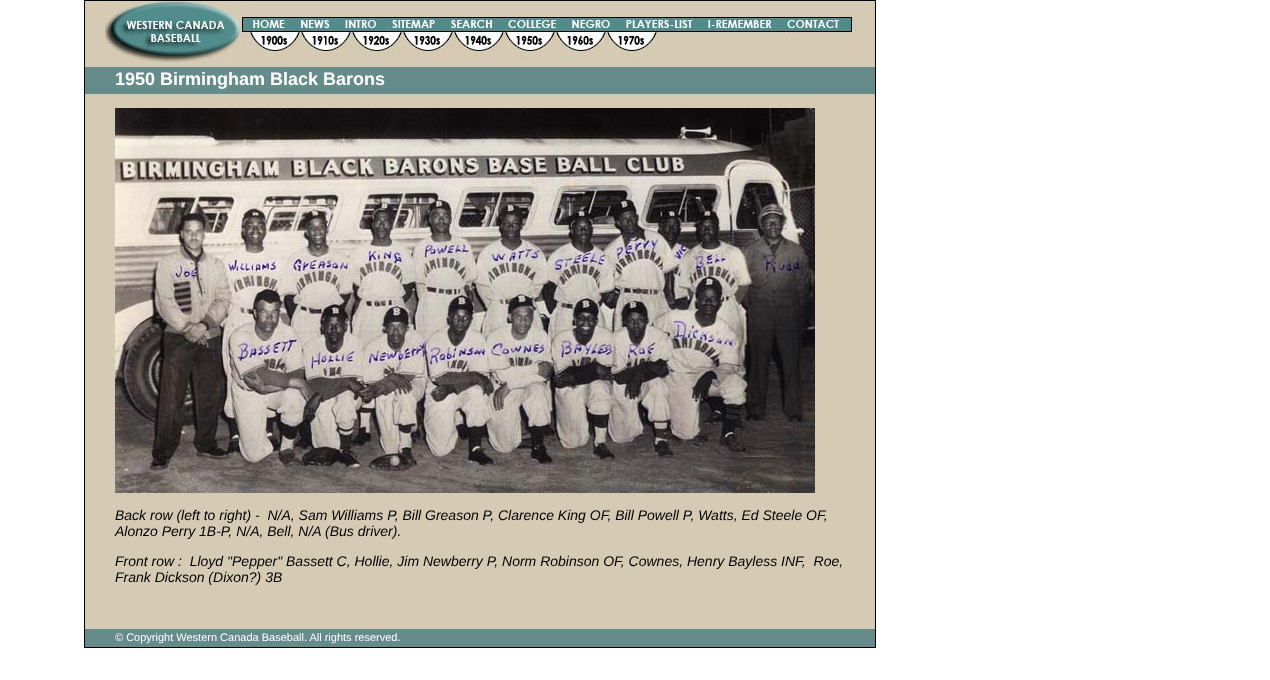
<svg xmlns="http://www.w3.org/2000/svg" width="1270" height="680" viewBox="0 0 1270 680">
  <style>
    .t1 { font: bold 18px Liberation Sans; fill: #fff; }
    .t2 { font: italic 14px Liberation Sans; fill: #000; }
    .t3 { font: 11px Liberation Sans; fill: #fff; }
  </style>
  <rect width="100%" height="100%" fill="#fff"/>
  <rect x="85" y="1" width="790" height="628" fill="#d5cab3"/>
  <rect x="84.5" y="0.5" width="791" height="647" fill="none" stroke="#000"/>
  <image x="105" y="1" width="752" height="62" href="images/1.png"/>
  <rect x="85" y="67" width="790" height="27" fill="#668b8b"/>
  <text x="115" y="85" class="t1">1950 Birmingham Black Barons</text>
  <image x="115" y="108" width="700" height="385" href="images/2.png"/>
  <text x="115" y="520" class="t2" xml:space="preserve">Back row (left to right) -  N/A, Sam Williams P, Bill Greason P, Clarence King OF, Bill Powell P, Watts, Ed Steele OF,</text>
  <text x="115" y="536" class="t2">Alonzo Perry 1B-P, N/A, Bell, N/A (Bus driver).</text>
  <text x="115" y="566" class="t2" xml:space="preserve">Front row :  Lloyd "Pepper" Bassett C, Hollie, Jim Newberry P, Norm Robinson OF, Cownes, Henry Bayless INF,  Roe,</text>
  <text x="115" y="582" class="t2">Frank Dickson (Dixon?) 3B</text>
  <rect x="85" y="629" width="790" height="18" fill="#668b8b"/>
  <text x="115" y="641" class="t3">© Copyright Western Canada Baseball. All rights reserved.</text>
</svg>
